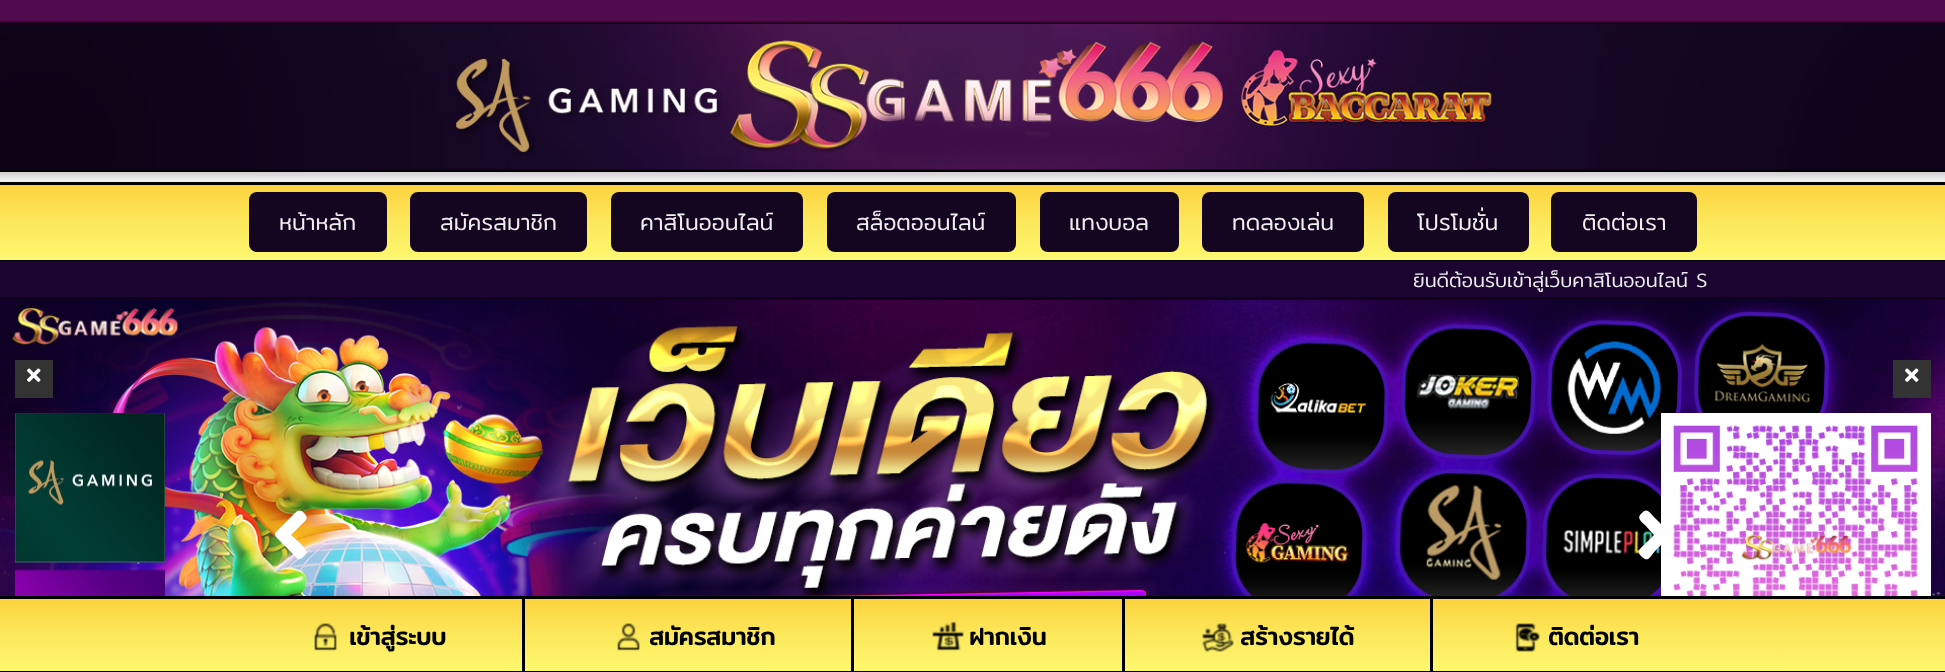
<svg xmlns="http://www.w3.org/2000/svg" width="1945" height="672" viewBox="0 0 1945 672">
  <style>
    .t1 { font: 300 22.5px Mitr; fill: #eee; }
    .t2 { font: 300 19.5px Mitr; fill: #eee; }
    .t3 { font: bold 24px Mitr; fill: #000; }
  </style>
  <defs>
    <linearGradient id="g1" gradientUnits="userSpaceOnUse" x1="973" y1="171" x2="973" y2="182"><stop offset="0" stop-color="#cec9cf"/><stop offset="0.47" stop-color="#e0e0e0"/><stop offset="1" stop-color="#f5f5f5"/></linearGradient>
    <linearGradient id="g2" gradientUnits="userSpaceOnUse" x1="973" y1="184" x2="973" y2="260"><stop offset="0" stop-color="#fcd23e"/><stop offset="0.48" stop-color="#fce75a"/><stop offset="1" stop-color="#fef870"/></linearGradient>
    <linearGradient id="g3" gradientUnits="userSpaceOnUse" x1="973" y1="598" x2="973" y2="671"><stop offset="0" stop-color="#fcd23e"/><stop offset="0.48" stop-color="#fce75a"/><stop offset="1" stop-color="#fef870"/></linearGradient>
  </defs>
  <rect width="100%" height="100%" fill="#510a4e"/>
  <rect x="0" y="21" width="1945" height="2" fill="#350131"/>
  <rect x="0" y="169" width="1945" height="1" fill="#10041a"/>
  <rect x="0" y="23" width="1945" height="1" fill="#000"/>
  <image x="0" y="24" width="1945" height="146" href="images/1.png"/>
  <rect x="0" y="172" width="1945" height="10" fill="url(#g1)"/>
  <rect x="0" y="170" width="1945" height="2" fill="#000"/>
  <rect x="0" y="182" width="1945" height="3" fill="#000"/>
  <rect x="0" y="185" width="1945" height="75" fill="url(#g2)"/>
  <rect x="0" y="260" width="1945" height="1" fill="#000"/>
  <rect x="249" y="192" width="138" height="60" rx="8" fill="#140620"/>
  <text x="279" y="230" class="t1">หน้าหลัก</text>
  <rect x="410" y="192" width="177" height="60" rx="8" fill="#140620"/>
  <text x="440" y="230" class="t1">สมัครสมาชิก</text>
  <rect x="611" y="192" width="192" height="60" rx="8" fill="#140620"/>
  <text x="640" y="230" class="t1">คาสิโนออนไลน์</text>
  <rect x="827" y="192" width="189" height="60" rx="8" fill="#140620"/>
  <text x="856" y="230" class="t1">สล็อตออนไลน์</text>
  <rect x="1040" y="192" width="139" height="60" rx="8" fill="#140620"/>
  <text x="1069" y="230" class="t1">แทงบอล</text>
  <rect x="1202" y="192" width="162" height="60" rx="8" fill="#140620"/>
  <text x="1232" y="230" class="t1">ทดลองเล่น</text>
  <rect x="1388" y="192" width="141" height="60" rx="8" fill="#140620"/>
  <text x="1417" y="230" class="t1">โปรโมชั่น</text>
  <rect x="1551" y="192" width="146" height="60" rx="8" fill="#140620"/>
  <text x="1582" y="230" class="t1">ติดต่อเรา</text>
  <rect x="0" y="261" width="1945" height="36" fill="#1b0530"/>
  <rect x="0" y="297" width="1945" height="3" fill="#10041c"/>
  <text x="1413" y="287" class="t2">ยินดีต้อนรับเข้าสู่เว็บคาสิโนออนไลน์ S</text>
  <image x="0" y="300" width="1945" height="296" href="images/2.png"/>
  <path d="M276 532L290 518C297 512 298 507 305 514C309 519 305 521 301 525L291 535L301 544C302 546 309 551 306 554C298 563 298 559 290 551L280 541C278 539 273 535 276 532Z" fill="#fff"/>
  <path d="M1669 537L1655 551C1649 558 1648 563 1641 556C1636 551 1640 549 1645 544L1654 535L1645 525C1643 523 1637 519 1640 515C1647 507 1648 511 1655 518L1666 529C1668 531 1672 534 1669 537Z" fill="#fff"/>
  <rect x="15" y="360" width="38" height="38" fill="#333"/>
  <image x="27" y="368" width="14" height="14" href="images/3.png"/>
  <image x="15" y="413" width="150" height="150" href="images/4.png"/>
  <image x="15" y="569" width="150" height="27" href="images/5.png"/>
  <rect x="1893" y="360" width="38" height="38" fill="#333"/>
  <image x="1905" y="368" width="14" height="14" href="images/3.png"/>
  <image x="1661" y="413" width="270" height="183" href="images/6.png"/>
  <rect x="0" y="599" width="1945" height="72" fill="url(#g3)"/>
  <rect x="0" y="596" width="1945" height="3" fill="#000"/>
  <rect x="0" y="671" width="1945" height="1" fill="#000"/>
  <rect x="522" y="599" width="3" height="72" fill="#000"/>
  <image x="314" y="623" width="23" height="28" href="images/7.png"/>
  <text x="349" y="645" class="t3">เข้าสู่ระบบ</text>
  <rect x="851" y="599" width="3" height="72" fill="#000"/>
  <image x="617" y="623" width="23" height="28" href="images/8.png"/>
  <text x="649" y="645" class="t3">สมัครสมาชิก</text>
  <rect x="1122" y="599" width="3" height="72" fill="#000"/>
  <image x="932" y="621" width="32" height="30" href="images/9.png"/>
  <text x="969" y="645" class="t3">ฝากเงิน</text>
  <rect x="1430" y="599" width="3" height="72" fill="#000"/>
  <image x="1202" y="623" width="32" height="29" href="images/10.png"/>
  <text x="1240" y="645" class="t3">สร้างรายได้</text>
  <image x="1515" y="623" width="25" height="29" href="images/11.png"/>
  <text x="1548" y="645" class="t3">ติดต่อเรา</text>
</svg>
